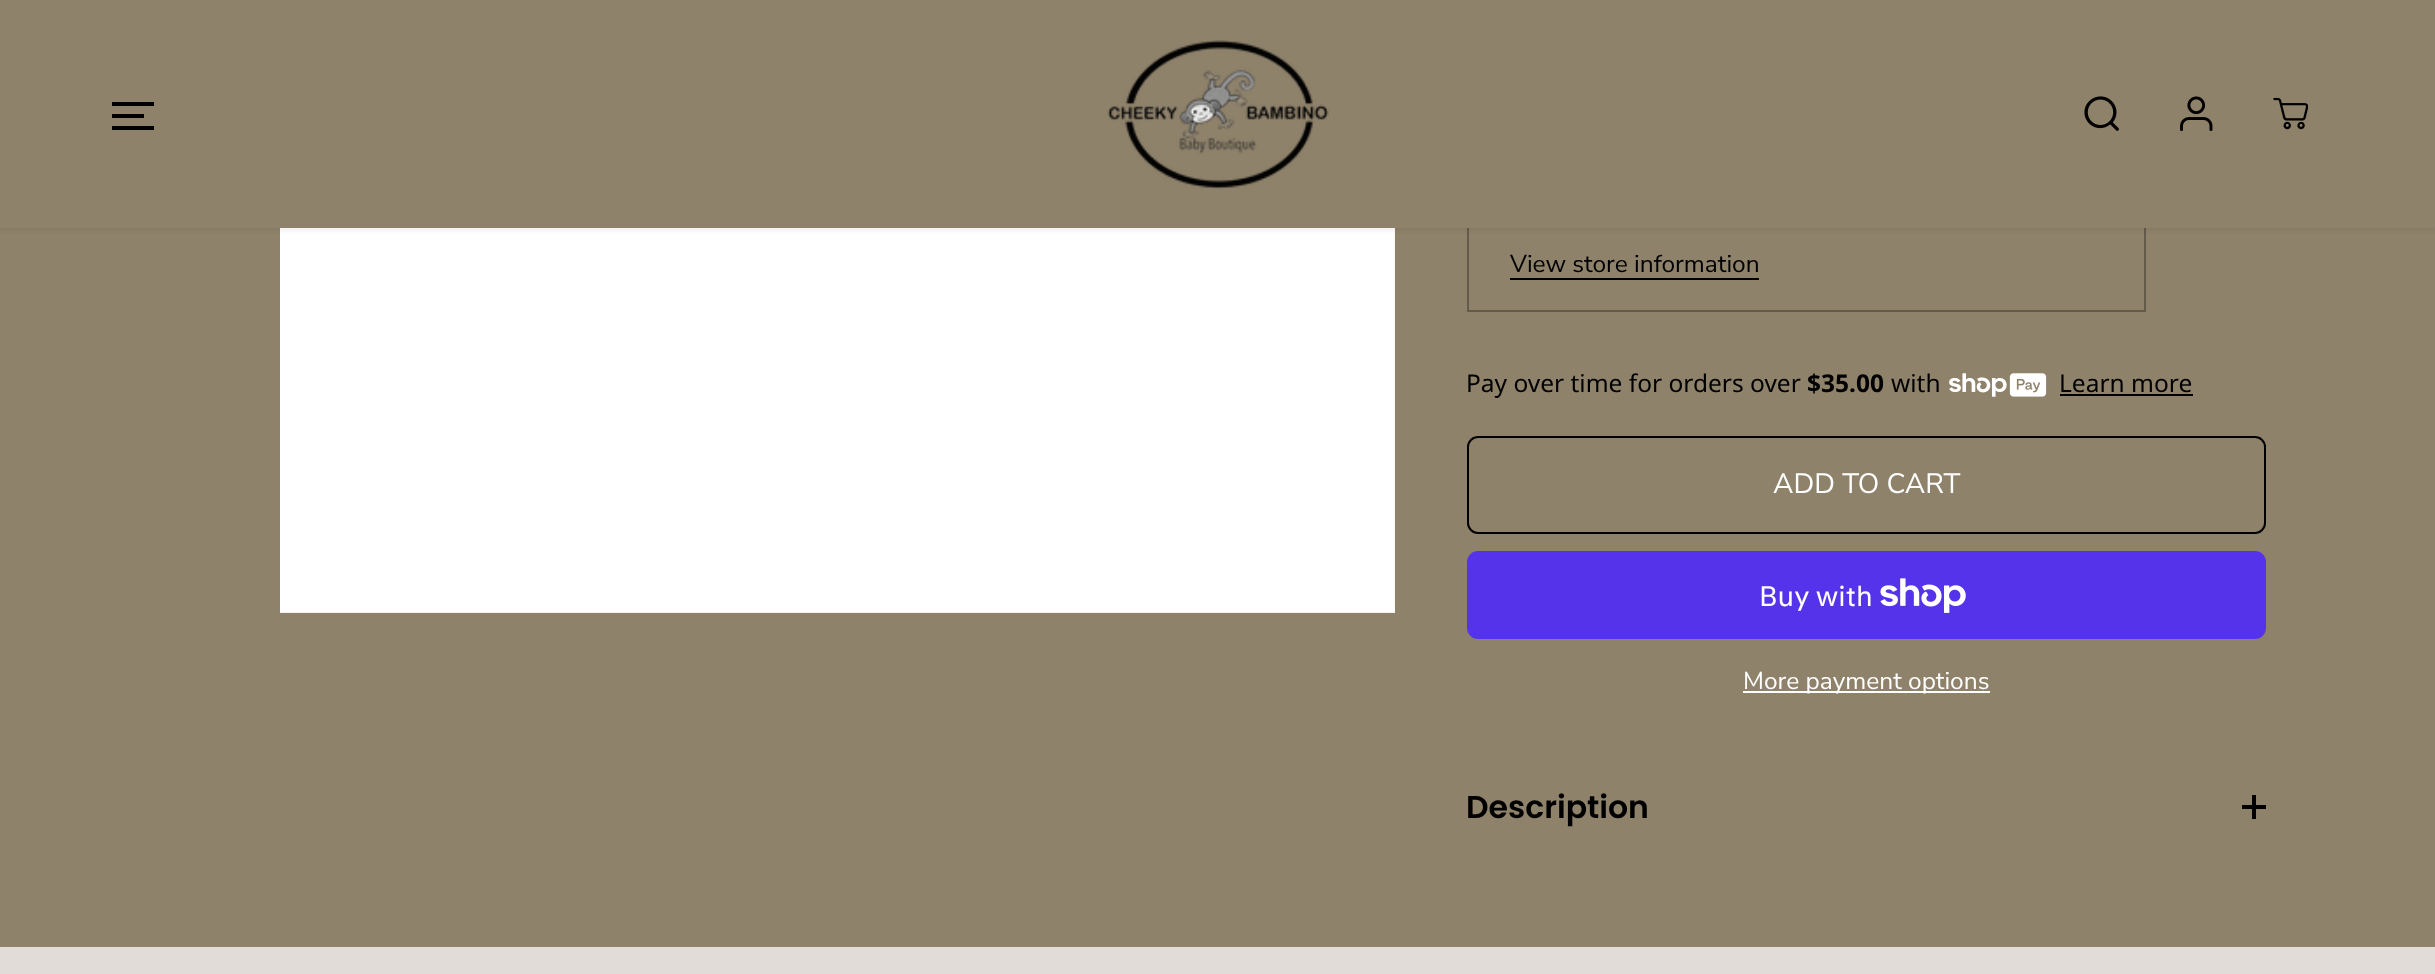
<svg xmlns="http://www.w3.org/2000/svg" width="2435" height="974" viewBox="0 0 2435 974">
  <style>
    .t1 { font: 24.5px Nunito Sans; fill: #000; }
    .t2 { font: 24.5px Noto Sans; fill: #000; }
    .t3 { font: bold 24.5px Noto Sans; fill: #000; }
    .t4 { font: 28px Nunito Sans; fill: #fff; }
    .t5 { font: 28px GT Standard; fill: #fff; }
    .t6 { font: 24.5px Nunito Sans; fill: #fff; }
    .t7 { font: 600 31.5px Poppins; fill: #000; }
  </style>
  <defs>
    <clipPath id="clip1"><path d="M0 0H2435V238H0ZM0 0H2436V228H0Z" clip-rule="evenodd"/></clipPath>
  </defs>
  <rect width="100%" height="100%" fill="#8f826b"/>
  <rect x="1468" y="99" width="677" height="212" fill="none" stroke="#645b4b" stroke-width="2"/>
  <rect x="1467" y="98" width="679" height="130" fill="#8f826b"/>
  <rect x="280" y="228" width="1115" height="385" fill="#f3efec"/>
  <image x="280" y="228" width="1115" height="385" href="images/5.png"/>
  <g clip-path="url(#clip1)">
    <rect x="0" y="4" width="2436" height="227" fill="#0000000d" filter="blur(2px)"/>
  </g>
  <rect x="112" y="102" width="42" height="4" fill="#000"/>
  <rect x="112" y="114" width="32" height="4" fill="#000"/>
  <rect x="112" y="126" width="42" height="4" fill="#000"/>
  <image x="1107" y="40" width="222" height="149" href="images/1.png"/>
  <image x="2084" y="96" width="35" height="35" href="images/2.png"/>
  <image x="2180" y="96" width="33" height="35" href="images/3.png"/>
  <image x="2273" y="97" width="35" height="33" href="images/4.png"/>
  <text x="1510" y="272" class="t1">View store information</text>
  <rect x="1510" y="278" width="249" height="2" fill="#000"/>
  <text x="1466" y="392" class="t2">Pay over time for orders over</text>
  <text x="1807" y="392" class="t3">$35.00</text>
  <text x="1891" y="392" class="t2">with</text>
  <image x="1949" y="373" width="98" height="24" href="images/6.png"/>
  <text x="2059" y="392" class="t2">Learn more</text>
  <rect x="2060" y="394" width="133" height="2" fill="#000"/>
  <rect x="1468" y="437" width="797" height="96" rx="10" fill="none" stroke="#000" stroke-width="2"/>
  <text x="1773" y="493" class="t4">ADD TO CART</text>
  <rect x="1467" y="551" width="799" height="88" rx="11" fill="#5433eb"/>
  <text x="1759" y="606" class="t5">Buy with</text>
  <image x="1880" y="578" width="86" height="35" href="images/7.png"/>
  <rect x="1743" y="691" width="247" height="2" fill="#fff"/>
  <text x="1743" y="689" class="t6">More payment options</text>
  <text x="1466" y="818" class="t7">Description</text>
  <rect x="2252" y="795" width="4" height="24" fill="#000"/>
  <rect x="2242" y="805" width="24" height="4" fill="#000"/>
  <rect x="0" y="947" width="2435" height="27" fill="#e1dcd8"/>
</svg>
